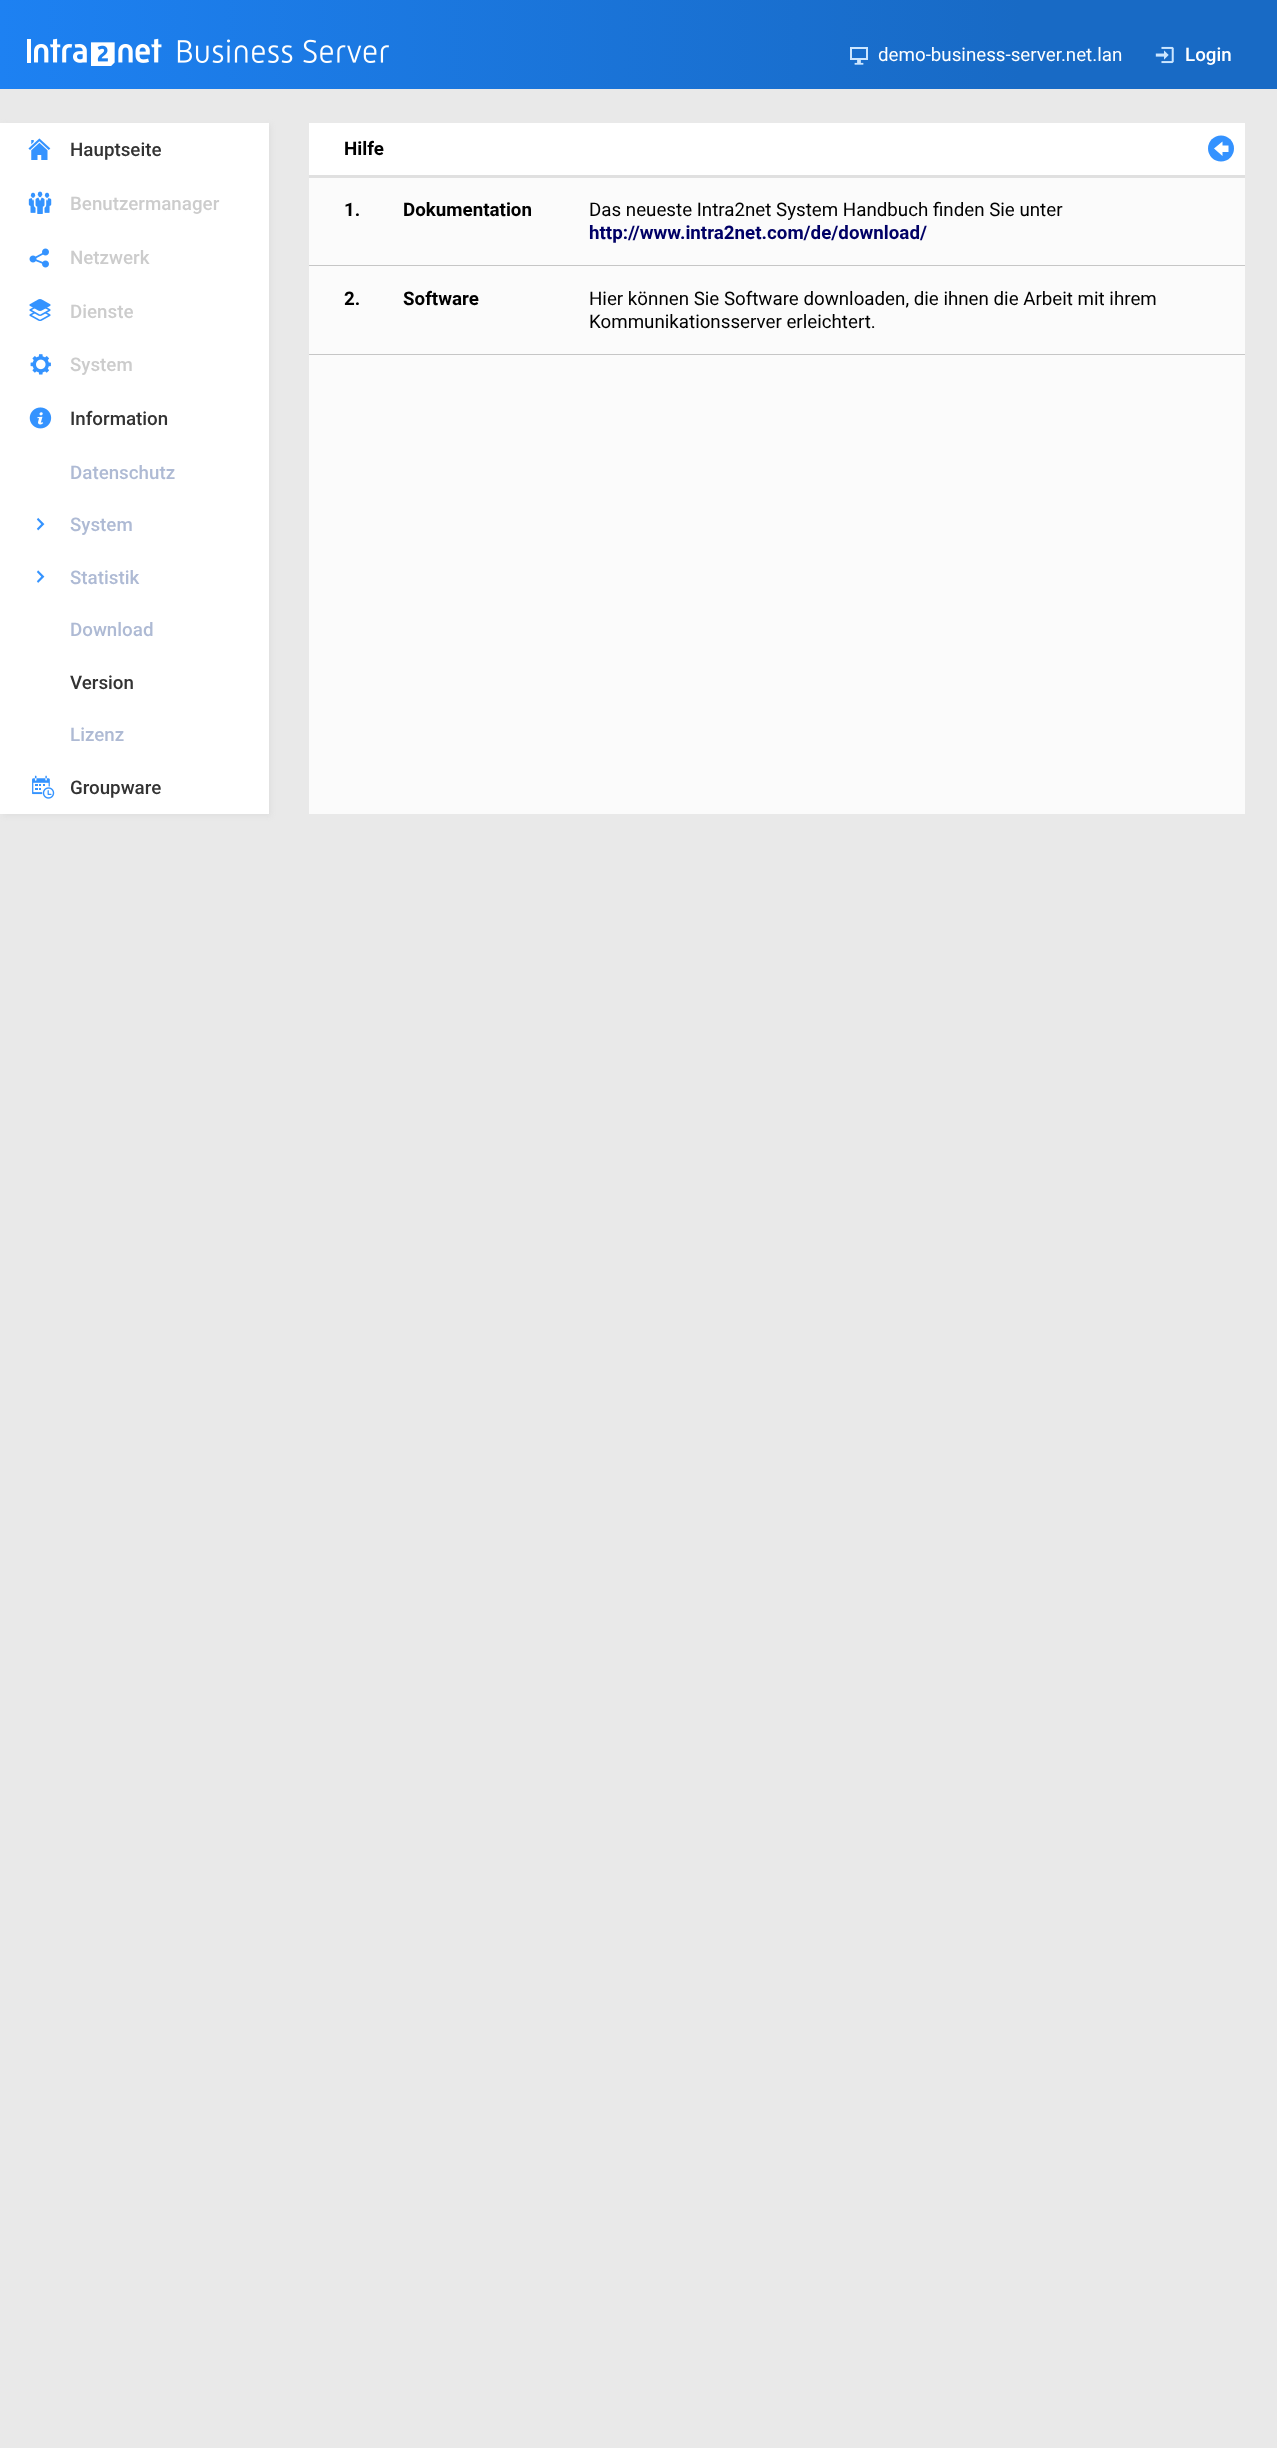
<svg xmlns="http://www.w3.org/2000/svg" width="1277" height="2448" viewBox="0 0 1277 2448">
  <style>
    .t1 { font: 18.75px Roboto; fill: #fff; }
    .t2 { font: 500 18.75px Roboto; fill: #fff; }
    .t3 { font: 500 18.75px Roboto; fill: #333; }
    .t4 { font: 500 18.75px Roboto; fill: #ccc; }
    .t5 { font: 500 18.75px Roboto; fill: #aebad4; }
    .t6 { font: bold 18.75px Roboto; fill: #000; }
    .t7 { font: 18.75px Roboto; fill: #000; }
    .t8 { font: bold 18.75px Roboto; fill: #006; }
  </style>
  <defs>
    <linearGradient id="g1" gradientUnits="userSpaceOnUse" x1="0" y1="44" x2="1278" y2="44"><stop offset="0" stop-color="#1d81f2"/><stop offset="0.8" stop-color="#186ac5"/></linearGradient>
  </defs>
  <rect width="100%" height="100%" fill="#e9e9e9"/>
  <rect x="0" y="0" width="1277" height="89" fill="url(#g1)"/>
  <image x="27" y="38" width="362" height="28" href="images/1.png"/>
  <image x="850" y="47" width="18" height="18" href="images/2.png"/>
  <text x="878" y="61" class="t1">demo-business-server.net.lan</text>
  <image x="1155" y="46" width="19" height="18" href="images/3.png"/>
  <text x="1185" y="61" class="t2">Login</text>
  <rect x="3" y="125" width="268" height="691" fill="#dfdfdf" filter="blur(2.5px)"/>
  <rect x="0" y="123" width="269" height="691" fill="#fff"/>
  <image x="28" y="138" width="23" height="22" href="images/4.png"/>
  <text x="70" y="156" class="t3">Hauptseite</text>
  <image x="28" y="191" width="24" height="23" href="images/5.png"/>
  <text x="70" y="210" class="t4">Benutzermanager</text>
  <image x="29" y="248" width="20" height="20" href="images/6.png"/>
  <text x="70" y="264" class="t4">Netzwerk</text>
  <image x="29" y="299" width="22" height="22" href="images/7.png"/>
  <text x="70" y="318" class="t4">Dienste</text>
  <image x="30" y="354" width="21" height="21" href="images/8.png"/>
  <text x="70" y="371" class="t4">System</text>
  <image x="29" y="407" width="23" height="22" href="images/9.png"/>
  <text x="70" y="425" class="t3">Information</text>
  <text x="70" y="479" class="t5">Datenschutz</text>
  <image x="36" y="517" width="9" height="14" href="images/10.png"/>
  <text x="70" y="531" class="t5">System</text>
  <image x="36" y="570" width="9" height="13" href="images/11.png"/>
  <text x="70" y="584" class="t5">Statistik</text>
  <text x="70" y="636" class="t5">Download</text>
  <text x="70" y="689" class="t3">Version</text>
  <text x="70" y="741" class="t5">Lizenz</text>
  <image x="32" y="775" width="23" height="24" href="images/12.png"/>
  <text x="70" y="794" class="t3">Groupware</text>
  <rect x="309" y="178" width="936" height="636" fill="#fbfbfb"/>
  <rect x="309" y="123" width="936" height="52" fill="#fff"/>
  <rect x="309" y="175" width="936" height="3" fill="#e0e0e0"/>
  <text x="344" y="155" class="t6">Hilfe</text>
  <circle cx="1221" cy="148.5" r="13" fill="#3492ff"/>
  <path d="M1222.5 141.5L1214 148.5L1222.5 156V152H1228.5V145.5H1222.5Z" fill="#fff"/>
  <rect x="309" y="265" width="936" height="1" fill="#c6c6c6"/>
  <text x="344" y="216" class="t6">1.</text>
  <text x="403" y="216" class="t6">Dokumentation</text>
  <text x="589" y="216" class="t7">Das neueste Intra2net System Handbuch finden Sie unter</text>
  <text x="589" y="239" class="t8">http://www.intra2net.com/de/download/</text>
  <rect x="309" y="354" width="936" height="1" fill="#c6c6c6"/>
  <text x="344" y="305" class="t6">2.</text>
  <text x="403" y="305" class="t6">Software</text>
  <text x="589" y="305" class="t7">Hier können Sie Software downloaden, die ihnen die Arbeit mit ihrem</text>
  <text x="589" y="328" class="t7">Kommunikationsserver erleichtert.</text>
</svg>
